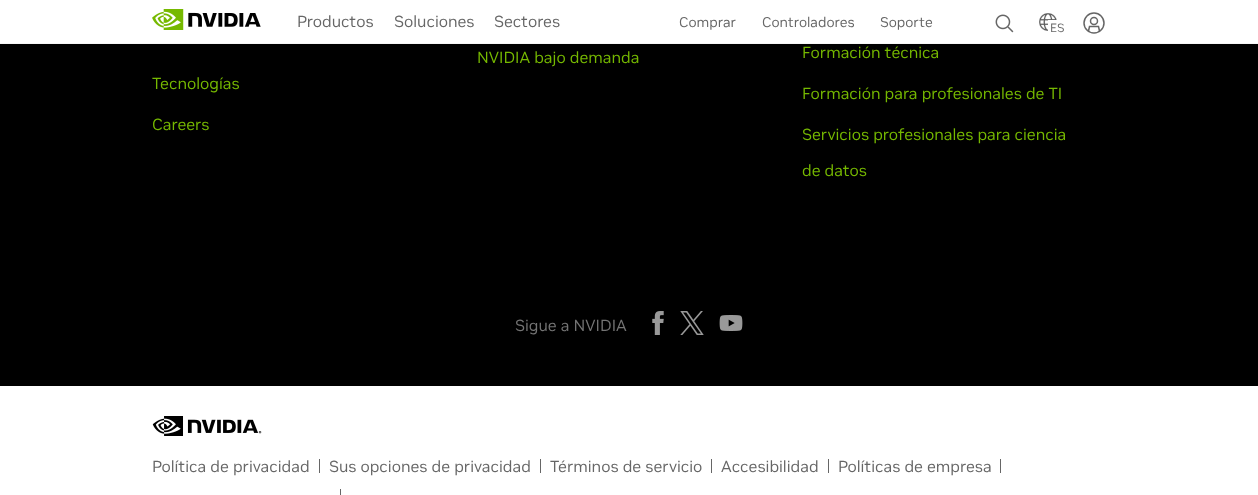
<svg xmlns="http://www.w3.org/2000/svg" width="1258" height="495" viewBox="0 0 1258 495">
  <style>
    .t1 { font: 16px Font; fill: #666; }
    .t2 { font: 14px Font; fill: #666; }
    .t3 { font: 12px Font; fill: #666; }
    .t4 { font: 16px Font; fill: #76b900; }
    .t5 { font: 16px Font; fill: #747474; }
  </style>
  <rect width="100%" height="100%" fill="#fff"/>
  <rect x="0" y="43" width="1258" height="1" fill="#f7f7f7"/>
  <image x="152" y="9" width="109" height="21" href="images/1.png"/>
  <text x="297" y="27" class="t1">Productos</text>
  <text x="394" y="27" class="t1">Soluciones</text>
  <text x="494" y="27" class="t1">Sectores</text>
  <text x="679" y="27" class="t2">Comprar</text>
  <text x="762" y="27" class="t2">Controladores</text>
  <text x="880" y="27" class="t2">Soporte</text>
  <image x="995" y="14" width="19" height="19" href="images/2.png"/>
  <image x="1039" y="13" width="18" height="18" href="images/3.png"/>
  <rect x="1048" y="20" width="9" height="11" fill="#fff"/>
  <text x="1050" y="32" class="t3">ES</text>
  <circle cx="1094" cy="23" r="10" fill="none" stroke="#666" stroke-width="1.5"/>
  <path d="M1099.5 31L1098.5 26.5H1089.5L1088.5 31" fill="none" stroke="#666" stroke-width="1.5"/>
  <circle cx="1094" cy="21" r="3.5" fill="none" stroke="#666" stroke-width="1.5"/>
  <rect x="0" y="44" width="1258" height="342" fill="#000"/>
  <text x="477" y="63" class="t4">NVIDIA bajo demanda</text>
  <text x="802" y="58" class="t4">Formación técnica</text>
  <text x="802" y="99" class="t4">Formación para profesionales de TI</text>
  <text x="802" y="140" class="t4">Servicios profesionales para ciencia</text>
  <text x="802" y="176" class="t4">de datos</text>
  <text x="152" y="89" class="t4">Tecnologías</text>
  <text x="152" y="130" class="t4">Careers</text>
  <text x="515" y="331" class="t5">Sigue a NVIDIA</text>
  <image x="652" y="311" width="12" height="24" href="images/4.png"/>
  <image x="680" y="311" width="24" height="24" href="images/5.png"/>
  <image x="719" y="315" width="24" height="16" href="images/6.png"/>
  <image x="152" y="416" width="110" height="20" href="images/7.png"/>
  <text x="152" y="472" class="t1">Política de privacidad</text>
  <rect x="319" y="459" width="1" height="14" fill="#666"/>
  <text x="329" y="472" class="t1">Sus opciones de privacidad</text>
  <rect x="540" y="459" width="1" height="14" fill="#666"/>
  <text x="550" y="472" class="t1">Términos de servicio</text>
  <rect x="711" y="459" width="1" height="14" fill="#666"/>
  <text x="721" y="472" class="t1">Accesibilidad</text>
  <rect x="828" y="459" width="1" height="14" fill="#666"/>
  <text x="838" y="472" class="t1">Políticas de empresa</text>
  <rect x="1000" y="459" width="1" height="14" fill="#666"/>
  <rect x="340" y="489" width="1" height="6" fill="#666"/>
</svg>
